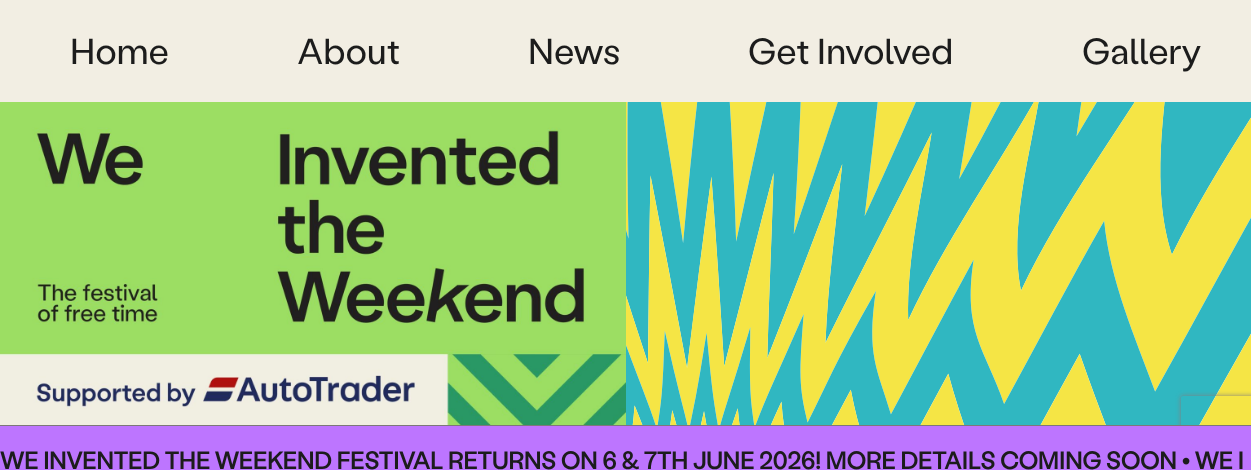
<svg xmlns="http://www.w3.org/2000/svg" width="1251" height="470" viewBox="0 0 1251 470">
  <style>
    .t1 { font: 36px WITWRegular; fill: #1c1c1c; }
    .t2 { font: bold 24px WITWRegular; fill: #1c1c1c; }
  </style>
  <defs>
    <clipPath id="clip1"><path d="M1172 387H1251V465H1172ZM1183 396H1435C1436 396 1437 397 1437 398V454C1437 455 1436 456 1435 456H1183C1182 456 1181 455 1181 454V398C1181 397 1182 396 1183 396Z" clip-rule="evenodd"/></clipPath>
  </defs>
  <rect width="100%" height="100%" fill="#fff"/>
  <rect x="0" y="0" width="1251" height="102" fill="#f2eee3"/>
  <text x="70" y="64" class="t1">Home</text>
  <text x="297" y="64" class="t1">About</text>
  <text x="528" y="64" class="t1">News</text>
  <text x="748" y="64" class="t1">Get Involved</text>
  <text x="1082" y="64" class="t1">Gallery</text>
  <image x="0" y="102" width="626" height="323" href="images/1.png"/>
  <image x="626" y="102" width="625" height="323" href="images/2.png"/>
  <g clip-path="url(#clip1)">
    <rect x="1181" y="396" width="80" height="60" rx="2" fill="#808080" filter="blur(2.5px)"/>
  </g>
  <rect x="0" y="426" width="1251" height="44" fill="#bd75ff"/>
  <rect x="0" y="425" width="1251" height="1" fill="#7d787a"/>
  <text x="0" y="469" class="t2">WE INVENTED THE WEEKEND FESTIVAL RETURNS ON 6 &amp; 7TH JUNE 2026! MORE DETAILS COMING SOON • WE I</text>
</svg>
